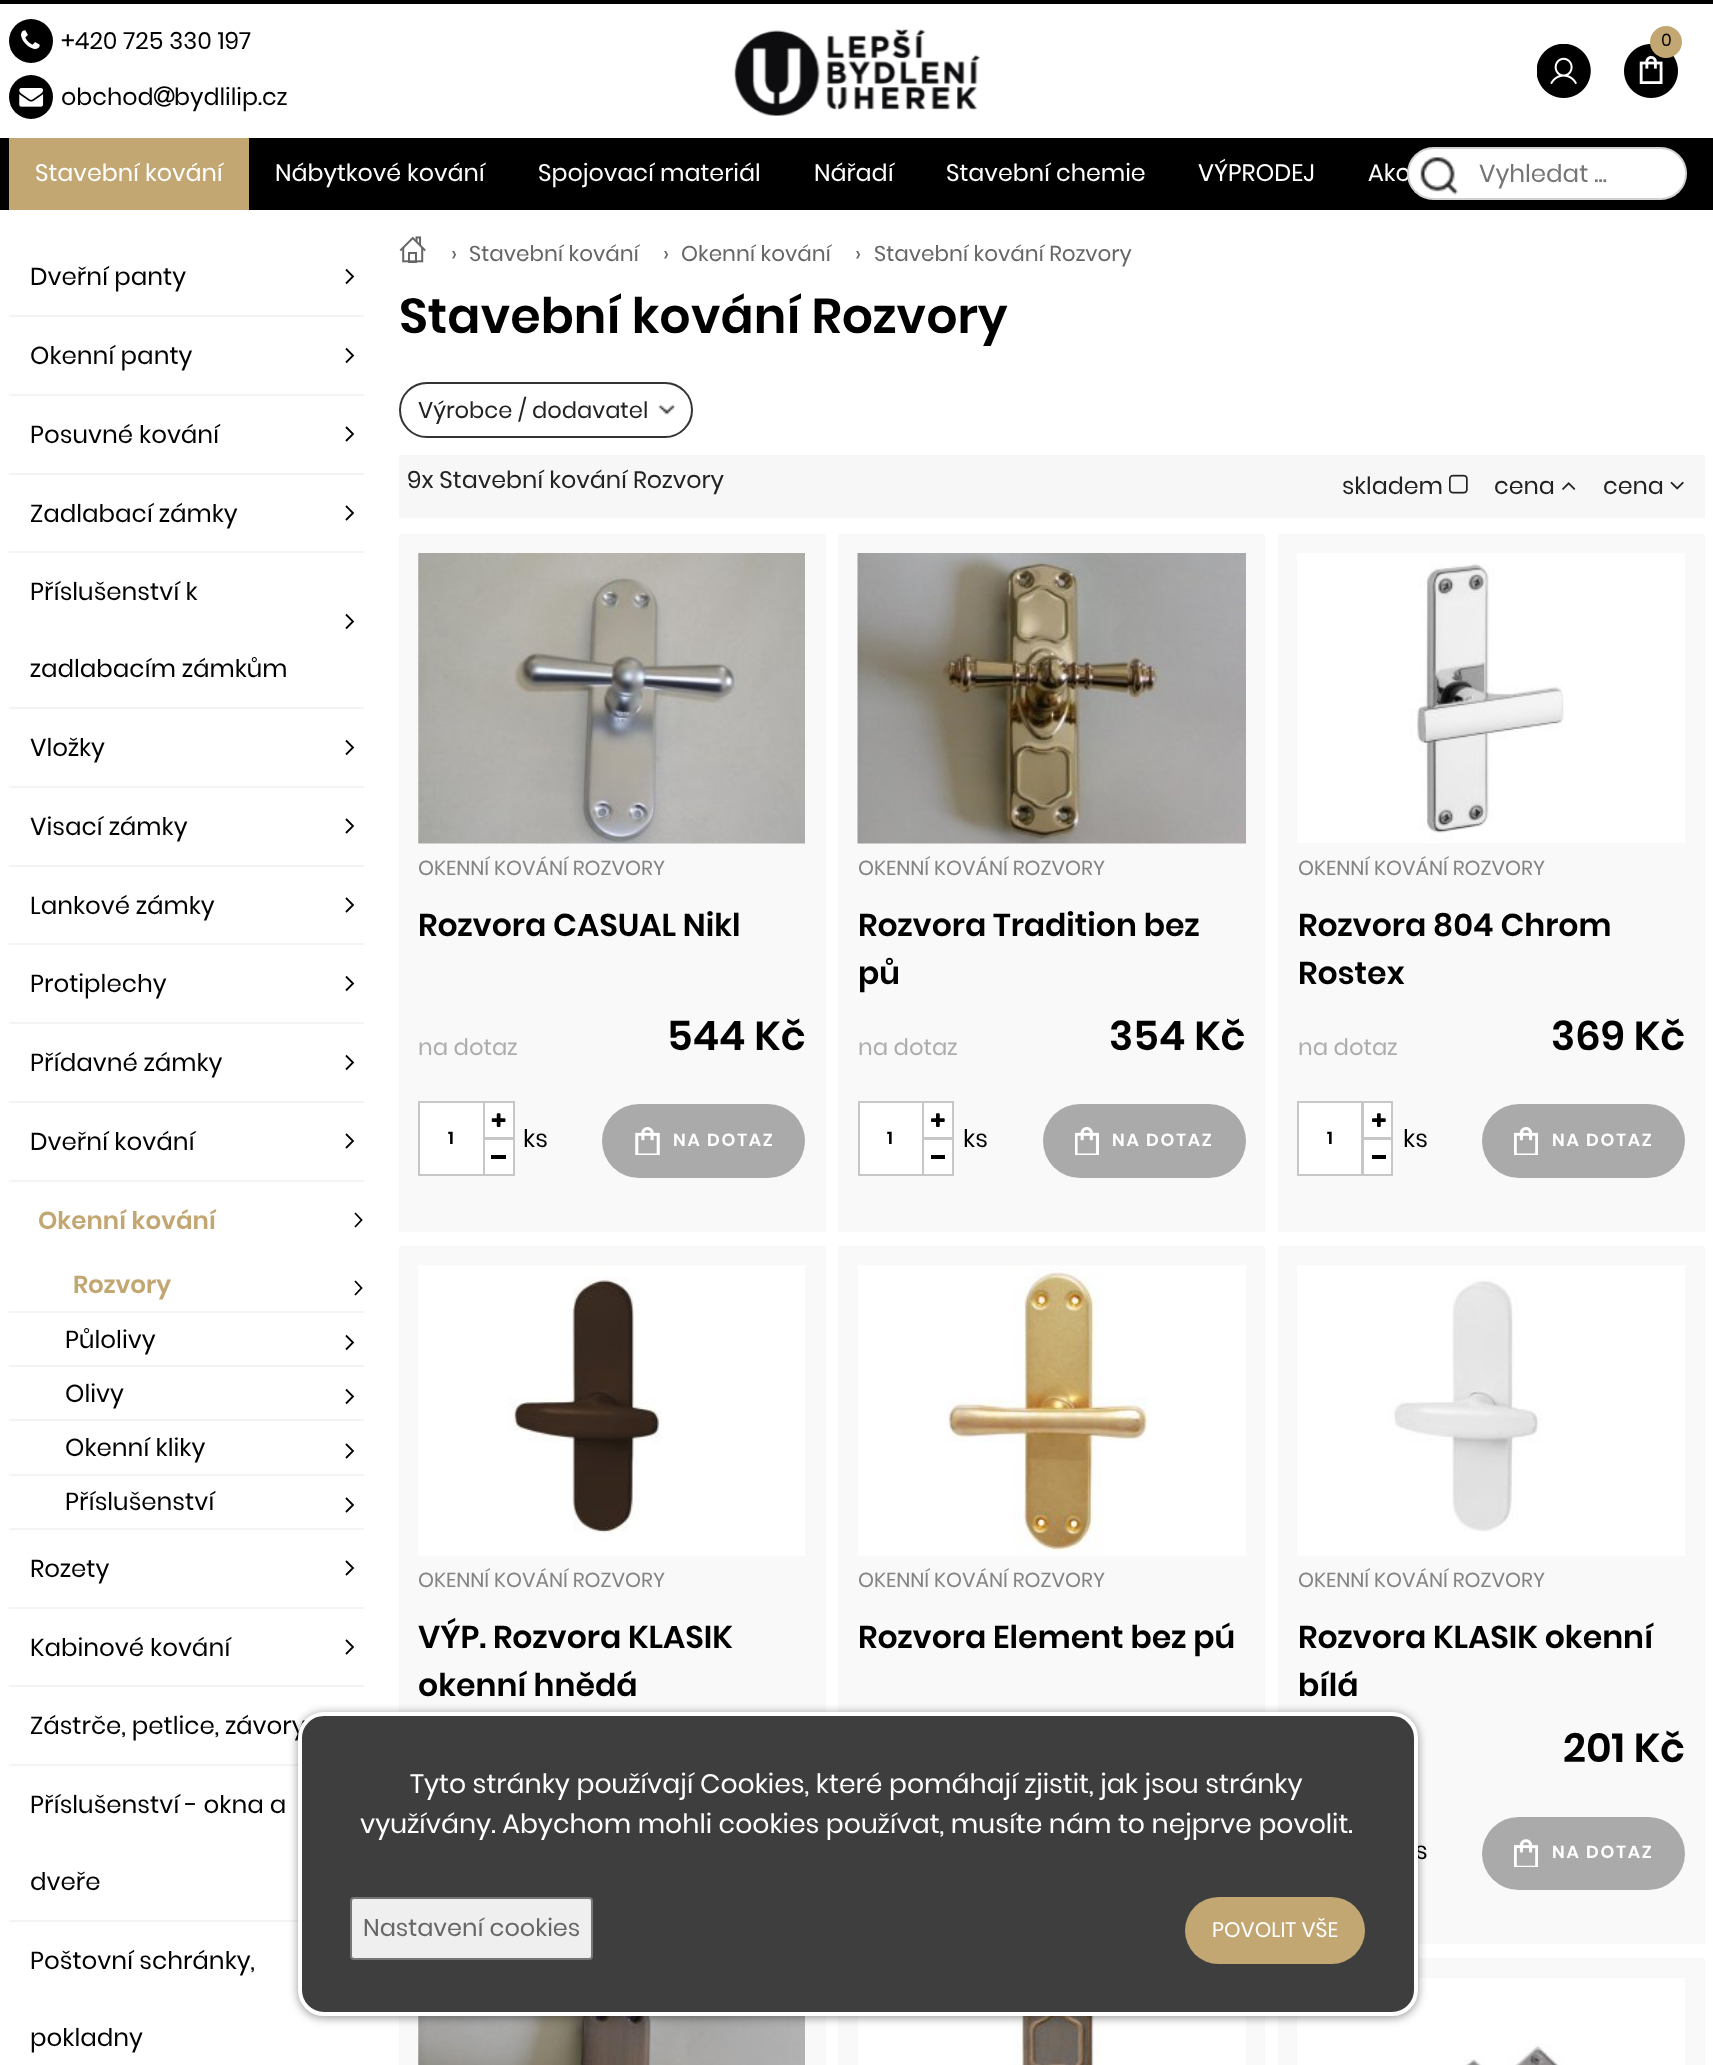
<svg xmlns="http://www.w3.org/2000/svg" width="1713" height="2065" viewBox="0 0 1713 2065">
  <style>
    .t1 { font: 23.75px Poppins; fill: #000; }
    .t2 { font: 17.5px Poppins; fill: #000; }
    .t3 { font: 23.75px Poppins; fill: #fff; }
    .t4 { font: 24.5px Poppins; fill: #757575; }
    .t5 { font: 24.5px Poppins; fill: #000; }
    .t6 { font: 600 24.5px Poppins; fill: #c2a773; }
    .t7 { font: 21.5px Poppins; fill: #666; }
    .t8 { font: 600 49px Poppins; fill: #000; }
    .t9 { font: 22.6px Poppins; fill: #222; }
    .t10 { font: 23.75px Poppins; fill: #222; }
    .t11 { font: 20.25px Poppins; fill: #848484; }
    .t12 { font: 600 31.5px Poppins; fill: #000; }
    .t13 { font: 22.75px Poppins; fill: #adadad; }
    .t14 { font: 600 40.5px Poppins; fill: #000; }
    .t15 { font: 600 17.5px Poppins; letter-spacing: 1.75px; fill: #000; }
    .t16 { font: 600 17.5px Poppins; letter-spacing: 1.75px; fill: #fff; }
    .t17 { font: 26.65px Poppins; fill: #fff; }
    .t18 { font: 24px Poppins; fill: #666; }
    .t19 { font: 21px Poppins; fill: #fff; }
  </style>
  <rect width="100%" height="100%" fill="#fff"/>
  <rect x="0" y="0" width="1713" height="4" fill="#000"/>
  <rect x="0" y="138" width="1713" height="72" fill="#000"/>
  <circle cx="31" cy="41" r="22" fill="#000"/>
  <image x="21" y="30" width="19" height="19" href="images/1.png"/>
  <text x="61" y="49" class="t1">+420 725 330 197</text>
  <circle cx="31" cy="97" r="22" fill="#000"/>
  <image x="19" y="88" width="25" height="19" href="images/2.png"/>
  <text x="61" y="105" class="t1">obchod</text>
  <image x="154" y="86" width="21" height="21" href="images/3.png"/>
  <text x="174" y="105" class="t1">bydlilip.cz</text>
  <image x="734" y="29" width="247" height="87" href="images/4.png"/>
  <image x="1624" y="44" width="54" height="54" href="images/5.png"/>
  <circle cx="1666" cy="42" r="16" fill="#c2a773"/>
  <text x="1661" y="46" class="t2">0</text>
  <image x="1537" y="44" width="54" height="54" href="images/6.png"/>
  <rect x="9" y="138" width="240" height="72" fill="#c2a773"/>
  <text x="35" y="181" class="t3">Stavební kování</text>
  <text x="275" y="181" class="t3">Nábytkové kování</text>
  <text x="538" y="181" class="t3">Spojovací materiál</text>
  <text x="814" y="181" class="t3">Nářadí</text>
  <text x="946" y="181" class="t3">Stavební chemie</text>
  <text x="1198" y="181" class="t3">VÝPRODEJ</text>
  <text x="1368" y="181" class="t3">Akc</text>
  <rect x="1407" y="147" width="280" height="53" rx="26.5" fill="#fff"/>
  <image x="1420" y="157" width="39" height="38" href="images/7.png"/>
  <rect x="1408" y="148" width="278" height="51" rx="25.5" fill="none" stroke="#0000002e" stroke-width="2"/>
  <text x="1479" y="182" class="t4">Vyhledat ...</text>
  <rect x="9" y="315" width="355" height="2" fill="#f4f4f4"/>
  <text x="30" y="285" class="t5">Dveřní panty</text>
  <path d="M346 269.5L353 276.5L346 283.5" fill="none" stroke="#000" stroke-width="1.8"/>
  <rect x="9" y="394" width="355" height="2" fill="#f4f4f4"/>
  <text x="30" y="364" class="t5">Okenní panty</text>
  <path d="M346 348.5L353 355.5L346 362.5" fill="none" stroke="#000" stroke-width="1.8"/>
  <rect x="9" y="473" width="355" height="2" fill="#f4f4f4"/>
  <text x="30" y="443" class="t5">Posuvné kování</text>
  <path d="M346 427L353 434L346 441" fill="none" stroke="#000" stroke-width="1.8"/>
  <rect x="9" y="551" width="355" height="2" fill="#f4f4f4"/>
  <text x="30" y="522" class="t5">Zadlabací zámky</text>
  <path d="M346 506L353 513L346 520" fill="none" stroke="#000" stroke-width="1.8"/>
  <rect x="9" y="707" width="355" height="2" fill="#f4f4f4"/>
  <text x="30" y="600" class="t5">Příslušenství k</text>
  <path d="M346 614.5L353 621.5L346 628.5" fill="none" stroke="#000" stroke-width="1.8"/>
  <text x="30" y="677" class="t5">zadlabacím zámkům</text>
  <rect x="9" y="786" width="355" height="2" fill="#f4f4f4"/>
  <text x="30" y="756" class="t5">Vložky</text>
  <path d="M346 740.5L353 747.5L346 754.5" fill="none" stroke="#000" stroke-width="1.8"/>
  <rect x="9" y="865" width="355" height="2" fill="#f4f4f4"/>
  <text x="30" y="835" class="t5">Visací zámky</text>
  <path d="M346 819L353 826L346 833" fill="none" stroke="#000" stroke-width="1.8"/>
  <rect x="9" y="943" width="355" height="2" fill="#f4f4f4"/>
  <text x="30" y="914" class="t5">Lankové zámky</text>
  <path d="M346 898L353 905L346 912" fill="none" stroke="#000" stroke-width="1.8"/>
  <rect x="9" y="1022" width="355" height="2" fill="#f4f4f4"/>
  <text x="30" y="992" class="t5">Protiplechy</text>
  <path d="M346 976.5L353 983.5L346 990.5" fill="none" stroke="#000" stroke-width="1.8"/>
  <rect x="9" y="1101" width="355" height="2" fill="#f4f4f4"/>
  <text x="30" y="1071" class="t5">Přídavné zámky</text>
  <path d="M346 1055.5L353 1062.5L346 1069.5" fill="none" stroke="#000" stroke-width="1.8"/>
  <rect x="9" y="1180" width="355" height="2" fill="#f4f4f4"/>
  <text x="30" y="1150" class="t5">Dveřní kování</text>
  <path d="M346 1134L353 1141L346 1148" fill="none" stroke="#000" stroke-width="1.8"/>
  <rect x="9" y="1528" width="355" height="2" fill="#f4f4f4"/>
  <text x="38" y="1229" class="t6">Okenní kování</text>
  <path d="M355 1213L361.5 1220L355 1227" fill="none" stroke="#000" stroke-width="1.8"/>
  <rect x="9" y="1311" width="355" height="2" fill="#f4f4f4"/>
  <text x="73" y="1293" class="t6">Rozvory</text>
  <path d="M355 1281L361.5 1288L355 1295" fill="none" stroke="#000" stroke-width="1.8"/>
  <rect x="9" y="1365" width="355" height="2" fill="#f4f4f4"/>
  <text x="65" y="1348" class="t5">Půlolivy</text>
  <path d="M346 1335.5L353 1342.5L346 1349.5" fill="none" stroke="#000" stroke-width="1.8"/>
  <rect x="9" y="1419" width="355" height="2" fill="#f4f4f4"/>
  <text x="65" y="1402" class="t5">Olivy</text>
  <path d="M346 1389.5L353 1396.5L346 1403.5" fill="none" stroke="#000" stroke-width="1.8"/>
  <rect x="9" y="1474" width="355" height="2" fill="#f4f4f4"/>
  <text x="65" y="1456" class="t5">Okenní kliky</text>
  <path d="M346 1444L353 1451L346 1458" fill="none" stroke="#000" stroke-width="1.8"/>
  <text x="65" y="1510" class="t5">Příslušenství</text>
  <path d="M346 1498L353 1505L346 1512" fill="none" stroke="#000" stroke-width="1.8"/>
  <rect x="9" y="1607" width="355" height="2" fill="#f4f4f4"/>
  <text x="30" y="1577" class="t5">Rozety</text>
  <path d="M346 1561L353 1568L346 1575" fill="none" stroke="#000" stroke-width="1.8"/>
  <rect x="9" y="1685" width="355" height="2" fill="#f4f4f4"/>
  <text x="30" y="1656" class="t5">Kabinové kování</text>
  <path d="M346 1640L353 1647L346 1654" fill="none" stroke="#000" stroke-width="1.8"/>
  <rect x="9" y="1764" width="289" height="2" fill="#f4f4f4"/>
  <text x="30" y="1734" class="t5">Zástrče, petlice, závory</text>
  <rect x="9" y="1920" width="289" height="2" fill="#f4f4f4"/>
  <text x="30" y="1813" class="t5">Příslušenství - okna a</text>
  <text x="30" y="1890" class="t5">dveře</text>
  <text x="30" y="1969" class="t5">Poštovní schránky,</text>
  <text x="30" y="2046" class="t5">pokladny</text>
  <image x="399" y="236" width="27" height="27" href="images/8.png"/>
  <text x="451" y="261" class="t7">›</text>
  <text x="469" y="261" class="t7">Stavební kování</text>
  <text x="663" y="261" class="t7">›</text>
  <text x="681" y="261" class="t7">Okenní kování</text>
  <text x="855" y="261" class="t7">›</text>
  <text x="874" y="261" class="t7">Stavební kování Rozvory</text>
  <text x="399" y="333" class="t8">Stavební kování Rozvory</text>
  <image x="658" y="404" width="18" height="11" href="images/9.png"/>
  <rect x="400" y="383" width="292" height="54" rx="27" fill="none" stroke="#333" stroke-width="2"/>
  <text x="418" y="418" class="t9">Výrobce / dodavatel</text>
  <rect x="399" y="455" width="1306" height="63" fill="#f7f7f7"/>
  <text x="407" y="488" class="t10">9x Stavební kování Rozvory</text>
  <text x="1342" y="494" class="t10">skladem</text>
  <image x="1449" y="474" width="19" height="20" href="images/10.png"/>
  <text x="1494" y="494" class="t10">cena</text>
  <image x="1562" y="482" width="14" height="8" href="images/11.png"/>
  <text x="1603" y="494" class="t10">cena</text>
  <image x="1670" y="481" width="14" height="9" href="images/12.png"/>
  <rect x="399" y="534" width="427" height="698" fill="#f9f9f9"/>
  <image x="418" y="553" width="387" height="291" href="images/13.png"/>
  <text x="418" y="875" class="t11">OKENNÍ KOVÁNÍ ROZVORY</text>
  <text x="418" y="936" class="t12">Rozvora CASUAL Nikl</text>
  <text x="418" y="1055" class="t13">na dotaz</text>
  <text x="667" y="1050" class="t14">544 Kč</text>
  <rect x="419" y="1102" width="65" height="73" fill="#fff" stroke="#c7c7c7" stroke-width="2"/>
  <text x="448" y="1144" class="t15">1</text>
  <rect x="484" y="1102" width="30" height="36" fill="#fff" stroke="#c7c7c7" stroke-width="2"/>
  <image x="491" y="1113" width="15" height="14" href="images/14.png"/>
  <text x="523" y="1147" class="t5">ks</text>
  <rect x="484" y="1139" width="30" height="36" fill="#fff" stroke="#c7c7c7" stroke-width="2"/>
  <rect x="491" y="1155" width="15" height="4" fill="#000"/>
  <rect x="602" y="1104" width="203" height="74" rx="37" fill="#aaa"/>
  <image x="635" y="1127" width="25" height="28" href="images/15.png"/>
  <text x="673" y="1146" class="t16">NA DOTAZ</text>
  <rect x="838" y="534" width="427" height="698" fill="#f9f9f9"/>
  <image x="857" y="553" width="389" height="291" href="images/16.png"/>
  <text x="858" y="875" class="t11">OKENNÍ KOVÁNÍ ROZVORY</text>
  <text x="858" y="936" class="t12">Rozvora Tradition bez</text>
  <text x="858" y="984" class="t12">pů</text>
  <text x="858" y="1055" class="t13">na dotaz</text>
  <text x="1109" y="1050" class="t14">354 Kč</text>
  <rect x="859" y="1102" width="64" height="73" fill="#fff" stroke="#c7c7c7" stroke-width="2"/>
  <text x="887" y="1144" class="t15">1</text>
  <rect x="923" y="1102" width="30" height="36" fill="#fff" stroke="#c7c7c7" stroke-width="2"/>
  <image x="931" y="1113" width="14" height="14" href="images/17.png"/>
  <text x="963" y="1147" class="t5">ks</text>
  <rect x="923" y="1139" width="30" height="36" fill="#fff" stroke="#c7c7c7" stroke-width="2"/>
  <rect x="931" y="1155" width="14" height="4" fill="#000"/>
  <rect x="1043" y="1104" width="203" height="74" rx="37" fill="#aaa"/>
  <image x="1075" y="1127" width="24" height="28" href="images/18.png"/>
  <text x="1112" y="1146" class="t16">NA DOTAZ</text>
  <rect x="1278" y="534" width="427" height="698" fill="#f9f9f9"/>
  <image x="1297" y="553" width="388" height="290" href="images/19.png"/>
  <text x="1298" y="875" class="t11">OKENNÍ KOVÁNÍ ROZVORY</text>
  <text x="1298" y="936" class="t12">Rozvora 804 Chrom</text>
  <text x="1298" y="984" class="t12">Rostex</text>
  <text x="1298" y="1055" class="t13">na dotaz</text>
  <text x="1551" y="1050" class="t14">369 Kč</text>
  <rect x="1298" y="1102" width="64" height="73" fill="#fff" stroke="#c7c7c7" stroke-width="2"/>
  <text x="1327" y="1144" class="t15">1</text>
  <rect x="1363" y="1102" width="29" height="36" fill="#fff" stroke="#c7c7c7" stroke-width="2"/>
  <image x="1372" y="1113" width="14" height="14" href="images/17.png"/>
  <text x="1403" y="1147" class="t5">ks</text>
  <rect x="1363" y="1139" width="29" height="36" fill="#fff" stroke="#c7c7c7" stroke-width="2"/>
  <rect x="1372" y="1155" width="14" height="4" fill="#000"/>
  <rect x="1482" y="1104" width="203" height="74" rx="37" fill="#aaa"/>
  <image x="1514" y="1127" width="24" height="28" href="images/20.png"/>
  <text x="1552" y="1146" class="t16">NA DOTAZ</text>
  <rect x="399" y="1246" width="427" height="466" fill="#f9f9f9"/>
  <image x="418" y="1265" width="387" height="291" href="images/21.png"/>
  <text x="418" y="1587" class="t11">OKENNÍ KOVÁNÍ ROZVORY</text>
  <text x="418" y="1648" class="t12">VÝP. Rozvora KLASIK</text>
  <text x="418" y="1696" class="t12">okenní hnědá</text>
  <rect x="838" y="1246" width="427" height="466" fill="#f9f9f9"/>
  <image x="858" y="1265" width="388" height="291" href="images/22.png"/>
  <text x="858" y="1587" class="t11">OKENNÍ KOVÁNÍ ROZVORY</text>
  <text x="858" y="1648" class="t12">Rozvora Element bez pú</text>
  <rect x="1278" y="1246" width="427" height="698" fill="#f9f9f9"/>
  <image x="1297" y="1265" width="388" height="291" href="images/23.png"/>
  <text x="1298" y="1587" class="t11">OKENNÍ KOVÁNÍ ROZVORY</text>
  <text x="1298" y="1648" class="t12">Rozvora KLASIK okenní</text>
  <text x="1298" y="1696" class="t12">bílá</text>
  <text x="1563" y="1762" class="t14">201 Kč</text>
  <text x="1415" y="1859" class="t5">s</text>
  <rect x="1482" y="1817" width="203" height="73" rx="36.5" fill="#aaa"/>
  <image x="1514" y="1839" width="24" height="28" href="images/24.png"/>
  <text x="1552" y="1858" class="t16">NA DOTAZ</text>
  <rect x="399" y="2016" width="427" height="49" fill="#f9f9f9"/>
  <image x="418" y="2016" width="387" height="49" href="images/25.png"/>
  <rect x="838" y="2016" width="427" height="49" fill="#f9f9f9"/>
  <image x="858" y="2016" width="388" height="49" href="images/26.png"/>
  <rect x="1278" y="1958" width="427" height="107" fill="#f9f9f9"/>
  <image x="1297" y="1978" width="388" height="87" href="images/27.png"/>
  <rect x="298" y="1713" width="1120" height="305" rx="26" fill="#00000066" filter="blur(5px)"/>
  <rect x="300" y="1714" width="1116" height="300" rx="24" fill="#3e3e3e" stroke="#fff" stroke-width="4"/>
  <text x="410" y="1793" class="t17">Tyto stránky používají Cookies, které pomáhají zjistit, jak jsou stránky</text>
  <text x="360" y="1833" class="t17">využívány. Abychom mohli cookies používat, musíte nám to nejprve povolit.</text>
  <rect x="351" y="1898" width="241" height="61" rx="3" fill="#efefef" stroke="#767676" stroke-width="2"/>
  <text x="363" y="1936" class="t18">Nastavení cookies</text>
  <rect x="1185" y="1897" width="180" height="67" rx="33.5" fill="#c2a773"/>
  <text x="1212" y="1937" class="t19">POVOLIT VŠE</text>
</svg>
